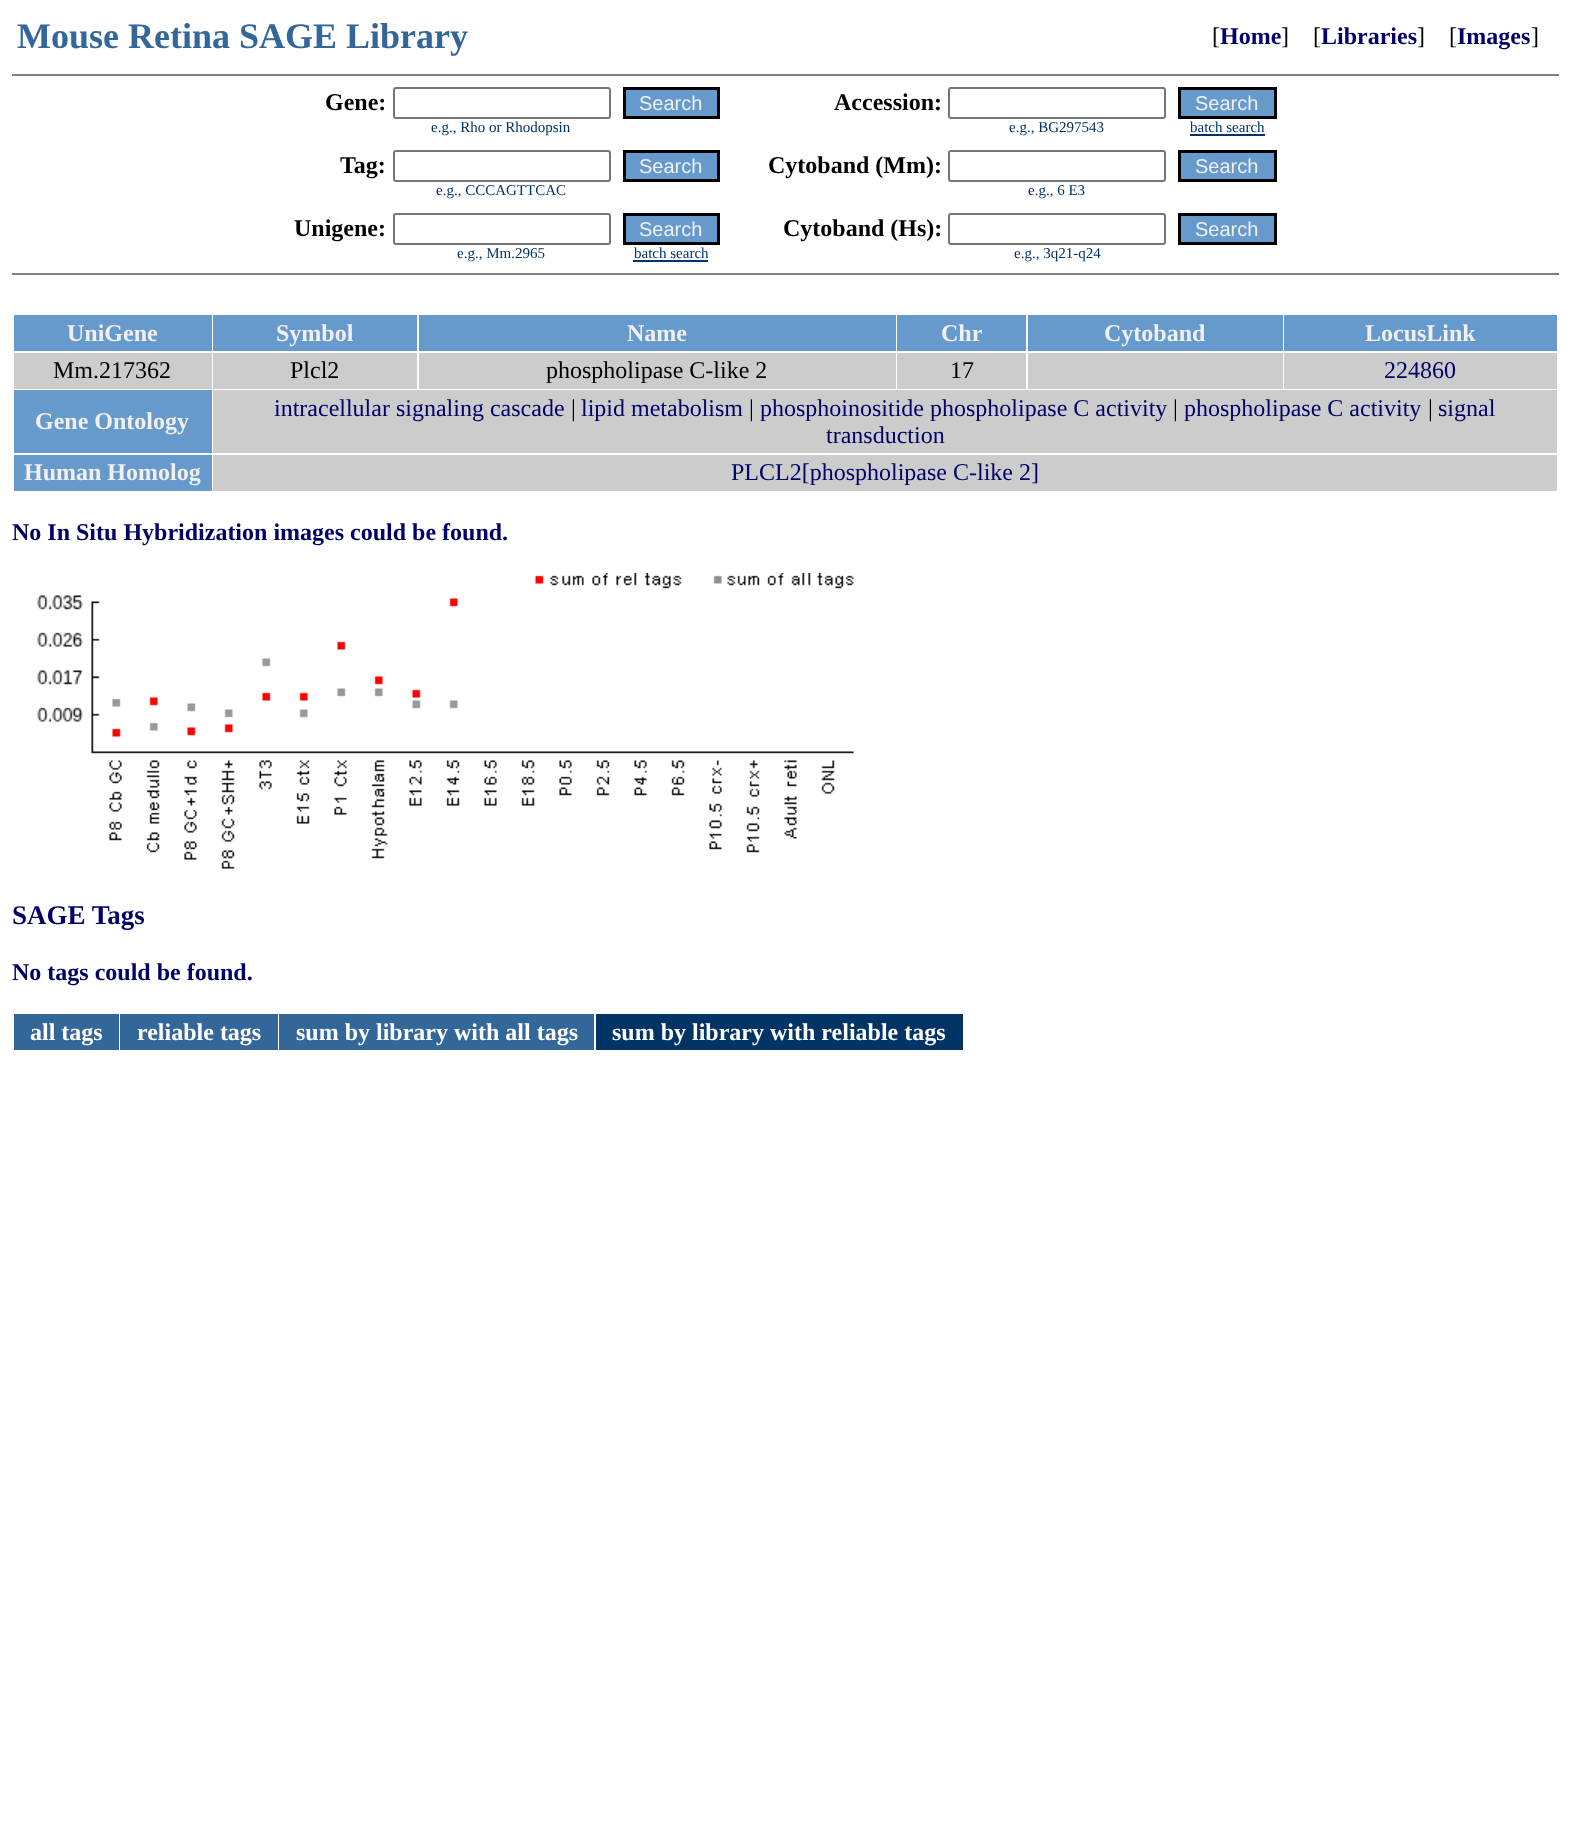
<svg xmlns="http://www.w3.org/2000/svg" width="1570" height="1841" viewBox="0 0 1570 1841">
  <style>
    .t1 { font: bold 36px Liberation Serif; fill: #369; }
    .t2 { font: 24px Liberation Serif; fill: #000; }
    .t3 { font: bold 24px Liberation Serif; fill: #006; }
    .t4 { font: bold 24px Liberation Serif; fill: #000; }
    .t5 { font: 20px Liberation Sans; fill: #f0f0f0; }
    .t6 { font: 15px Liberation Serif; fill: #036; }
    .t7 { font: bold 24px Liberation Serif; fill: #f0f0f0; }
    .t8 { font: 24px Liberation Serif; fill: #006; }
    .t9 { font: bold 27px Liberation Serif; fill: #006; }
    .t10 { font: bold 24px Liberation Serif; fill: #fff; }
  </style>
  <rect width="100%" height="100%" fill="#fff"/>
  <text x="17" y="48" class="t1">Mouse Retina SAGE Library</text>
  <text x="1212" y="44" class="t2">[</text>
  <text x="1220" y="44" class="t3">Home</text>
  <text x="1281" y="44" class="t2" xml:space="preserve">]    [</text>
  <text x="1321" y="44" class="t3">Libraries</text>
  <text x="1417" y="44" class="t2" xml:space="preserve">]    [</text>
  <text x="1457" y="44" class="t3">Images</text>
  <text x="1531" y="44" class="t2">]</text>
  <rect x="12" y="74" width="1547" height="2" fill="#808080"/>
  <text x="325" y="110" class="t4">Gene:</text>
  <rect x="394" y="88" width="216" height="30" rx="2" fill="none" stroke="#767676" stroke-width="2"/>
  <rect x="624.5" y="88.5" width="94" height="29" fill="#69c" stroke="#000" stroke-width="3"/>
  <text x="639" y="110" class="t5">Search</text>
  <text x="834" y="110" class="t4">Accession:</text>
  <rect x="949" y="88" width="216" height="30" rx="2" fill="none" stroke="#767676" stroke-width="2"/>
  <rect x="1179.5" y="88.5" width="96" height="29" fill="#69c" stroke="#000" stroke-width="3"/>
  <text x="1195" y="110" class="t5">Search</text>
  <text x="431" y="132" class="t6">e.g., Rho or Rhodopsin</text>
  <text x="1009" y="132" class="t6">e.g., BG297543</text>
  <text x="1190" y="132" class="t6">batch search</text>
  <rect x="1190" y="134" width="75" height="2" fill="#036"/>
  <text x="340" y="173" class="t4">Tag:</text>
  <rect x="394" y="151" width="216" height="30" rx="2" fill="none" stroke="#767676" stroke-width="2"/>
  <rect x="624.5" y="151.5" width="94" height="29" fill="#69c" stroke="#000" stroke-width="3"/>
  <text x="639" y="173" class="t5">Search</text>
  <text x="768" y="173" class="t4">Cytoband (Mm):</text>
  <rect x="949" y="151" width="216" height="30" rx="2" fill="none" stroke="#767676" stroke-width="2"/>
  <rect x="1179.5" y="151.5" width="96" height="29" fill="#69c" stroke="#000" stroke-width="3"/>
  <text x="1195" y="173" class="t5">Search</text>
  <text x="436" y="195" class="t6">e.g., CCCAGTTCAC</text>
  <text x="1028" y="195" class="t6">e.g., 6 E3</text>
  <text x="294" y="236" class="t4">Unigene:</text>
  <rect x="394" y="214" width="216" height="30" rx="2" fill="none" stroke="#767676" stroke-width="2"/>
  <rect x="624.5" y="214.5" width="94" height="29" fill="#69c" stroke="#000" stroke-width="3"/>
  <text x="639" y="236" class="t5">Search</text>
  <text x="783" y="236" class="t4">Cytoband (Hs):</text>
  <rect x="949" y="214" width="216" height="30" rx="2" fill="none" stroke="#767676" stroke-width="2"/>
  <rect x="1179.5" y="214.5" width="96" height="29" fill="#69c" stroke="#000" stroke-width="3"/>
  <text x="1195" y="236" class="t5">Search</text>
  <text x="457" y="258" class="t6">e.g., Mm.2965</text>
  <text x="634" y="258" class="t6">batch search</text>
  <rect x="633" y="260" width="75" height="2" fill="#036"/>
  <text x="1014" y="258" class="t6">e.g., 3q21-q24</text>
  <rect x="12" y="273" width="1547" height="2" fill="#808080"/>
  <rect x="14" y="315" width="198" height="36" fill="#69c"/>
  <text x="67" y="341" class="t7">UniGene</text>
  <rect x="213" y="315" width="204" height="36" fill="#69c"/>
  <text x="276" y="341" class="t7">Symbol</text>
  <rect x="419" y="315" width="477" height="36" fill="#69c"/>
  <text x="627" y="341" class="t7">Name</text>
  <rect x="897" y="315" width="129" height="36" fill="#69c"/>
  <text x="941" y="341" class="t7">Chr</text>
  <rect x="1028" y="315" width="255" height="36" fill="#69c"/>
  <text x="1104" y="341" class="t7">Cytoband</text>
  <rect x="1284" y="315" width="273" height="36" fill="#69c"/>
  <text x="1365" y="341" class="t7">LocusLink</text>
  <rect x="14" y="353" width="198" height="36" fill="#ccc"/>
  <text x="53" y="378" class="t2">Mm.217362</text>
  <rect x="213" y="353" width="204" height="36" fill="#ccc"/>
  <text x="290" y="378" class="t2">Plcl2</text>
  <rect x="419" y="353" width="477" height="36" fill="#ccc"/>
  <text x="546" y="378" class="t2">phospholipase C-like 2</text>
  <rect x="897" y="353" width="129" height="36" fill="#ccc"/>
  <text x="950" y="378" class="t2">17</text>
  <rect x="1028" y="353" width="255" height="36" fill="#ccc"/>
  <rect x="1284" y="353" width="273" height="36" fill="#ccc"/>
  <text x="1384" y="378" class="t8">224860</text>
  <rect x="14" y="390" width="198" height="63" fill="#69c"/>
  <text x="35" y="429" class="t7">Gene Ontology</text>
  <rect x="213" y="390" width="1344" height="63" fill="#ccc"/>
  <text x="274" y="416" class="t8">intracellular signaling cascade</text>
  <text x="571" y="416" class="t2">|</text>
  <text x="581" y="416" class="t8">lipid metabolism</text>
  <text x="749" y="416" class="t2">|</text>
  <text x="760" y="416" class="t8">phosphoinositide phospholipase C activity</text>
  <text x="1173" y="416" class="t2">|</text>
  <text x="1184" y="416" class="t8">phospholipase C activity</text>
  <text x="1428" y="416" class="t2">|</text>
  <text x="1438" y="416" class="t8">signal</text>
  <text x="826" y="443" class="t8">transduction</text>
  <rect x="14" y="455" width="198" height="36" fill="#69c"/>
  <text x="24" y="480" class="t7">Human Homolog</text>
  <rect x="213" y="455" width="1344" height="36" fill="#ccc"/>
  <text x="731" y="480" class="t8">PLCL2[phospholipase C-like 2]</text>
  <text x="12" y="540" class="t3">No In Situ Hybridization images could be found.</text>
  <image x="37" y="573" width="817" height="296" href="images/1.png"/>
  <text x="12" y="924" class="t9">SAGE Tags</text>
  <text x="12" y="980" class="t3">No tags could be found.</text>
  <rect x="14" y="1014" width="105" height="36" fill="#369"/>
  <text x="30" y="1040" class="t10">all tags</text>
  <rect x="120" y="1014" width="158" height="36" fill="#369"/>
  <text x="137" y="1040" class="t10">reliable tags</text>
  <rect x="279" y="1014" width="315" height="36" fill="#369"/>
  <text x="296" y="1040" class="t10">sum by library with all tags</text>
  <rect x="596" y="1014" width="367" height="36" fill="#036"/>
  <text x="612" y="1040" class="t10">sum by library with reliable tags</text>
</svg>
